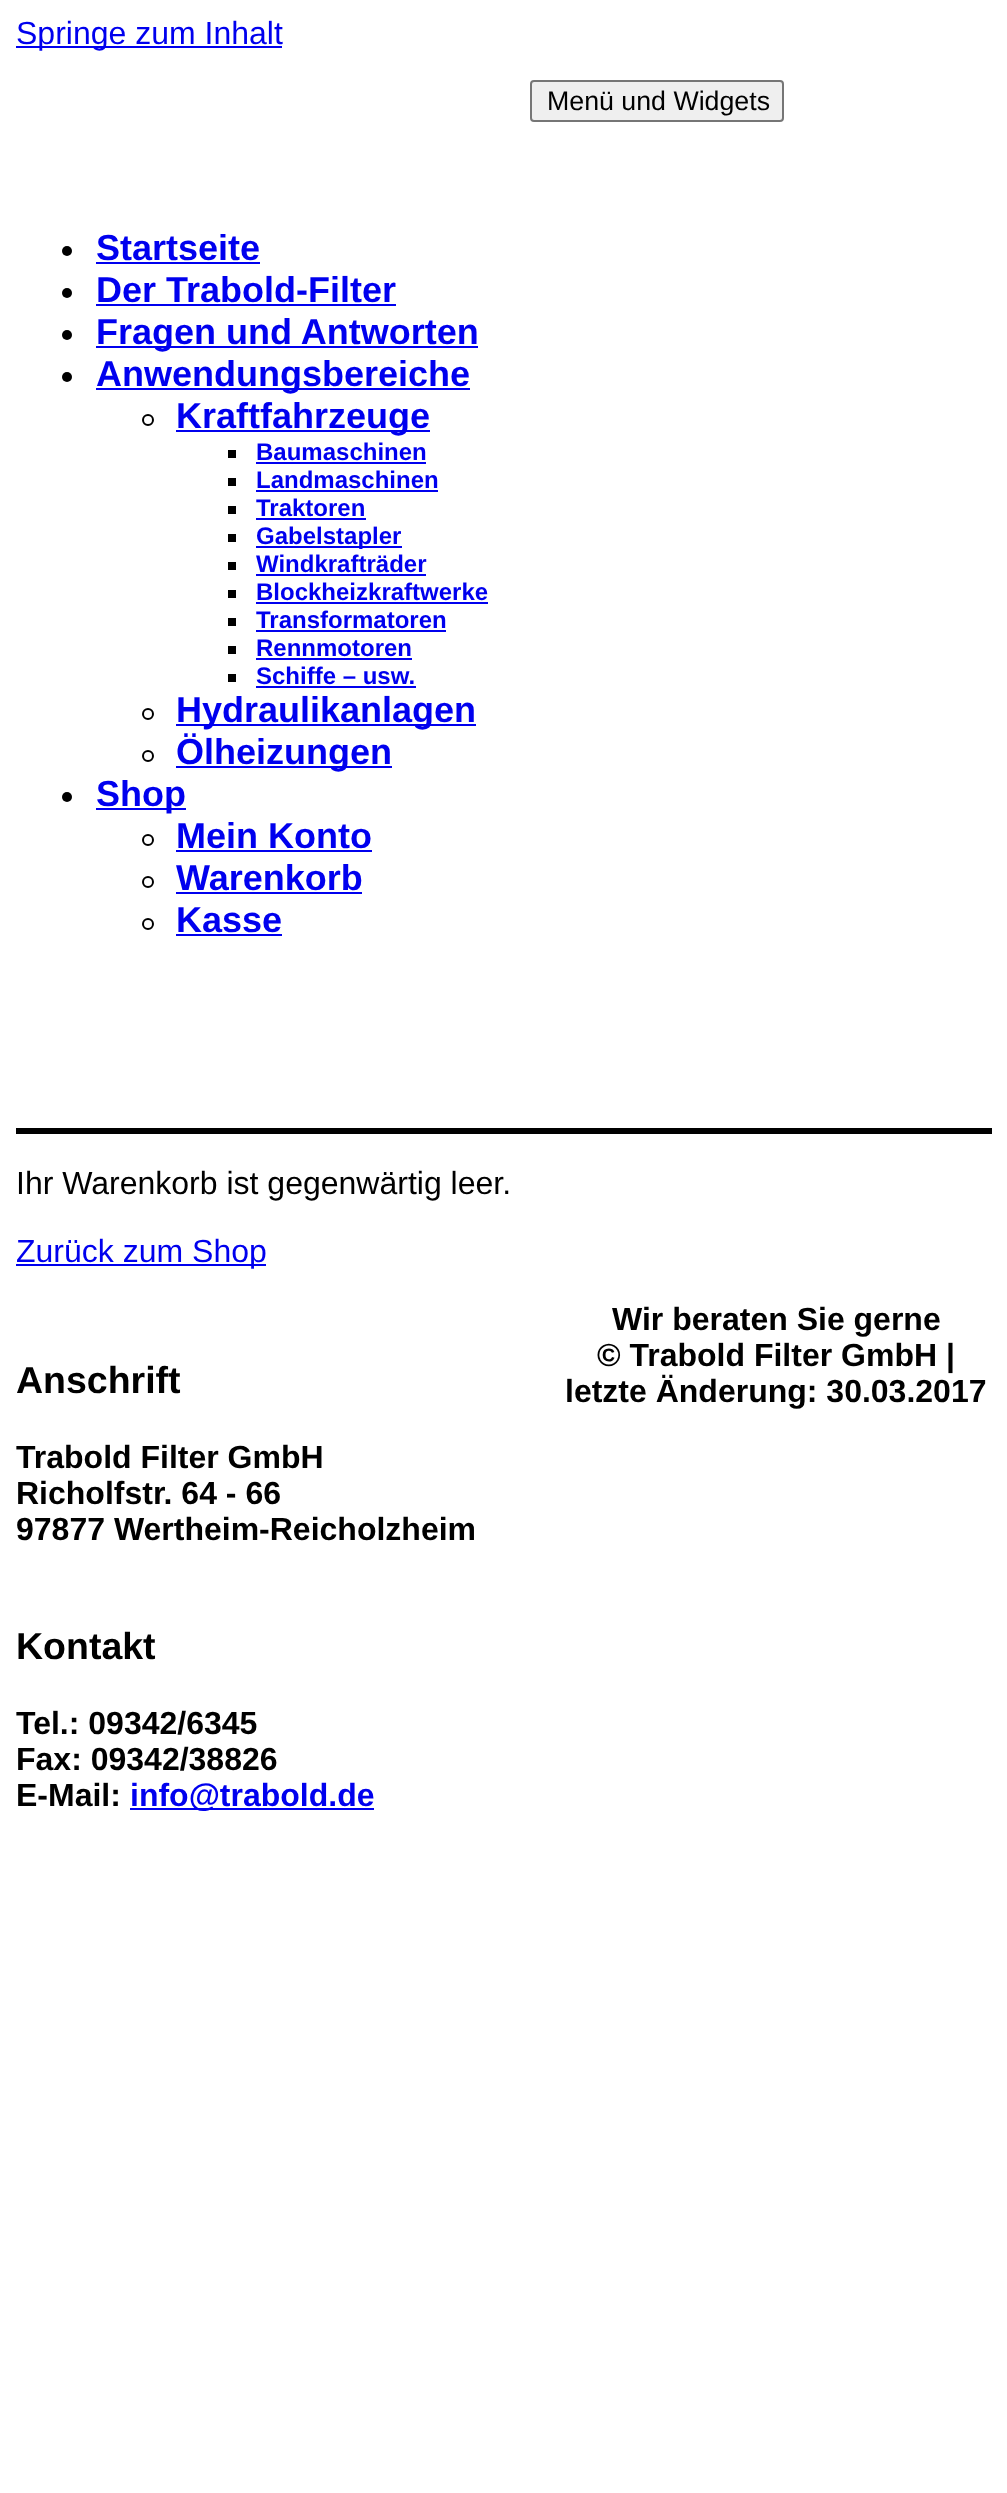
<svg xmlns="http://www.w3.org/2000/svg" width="1007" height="2493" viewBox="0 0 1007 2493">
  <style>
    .t1 { font: 32px Liberation Sans; fill: #00e; }
    .t2 { font: 26.75px Liberation Sans; fill: #000; }
    .t3 { font: bold 36px Liberation Sans; fill: #00e; }
    .t4 { font: bold 24px Liberation Sans; fill: #00e; }
    .t5 { font: 32px Liberation Sans; fill: #000; }
    .t6 { font: bold 37.5px Liberation Sans; fill: #000; }
    .t7 { font: bold 32px Liberation Sans; fill: #000; }
    .t8 { font: bold 32px Liberation Sans; fill: #00e; }
  </style>
  <rect width="100%" height="100%" fill="#fff"/>
  <rect x="16" y="46" width="266" height="2" fill="#00e"/>
  <text x="16" y="44" class="t1">Springe zum Inhalt</text>
  <rect x="531" y="81" width="252" height="40" rx="3" fill="#efefef" stroke="#767676" stroke-width="2"/>
  <text x="547" y="110" class="t2">Menü und Widgets</text>
  <circle cx="67" cy="251" r="5" fill="#000"/>
  <text x="96" y="260" class="t3">Startseite</text>
  <rect x="96" y="262" width="164" height="2" fill="#00e"/>
  <circle cx="67" cy="293" r="5" fill="#000"/>
  <text x="96" y="302" class="t3">Der Trabold-Filter</text>
  <rect x="96" y="304" width="300" height="2" fill="#00e"/>
  <circle cx="67" cy="335" r="5" fill="#000"/>
  <rect x="96" y="346" width="382" height="2" fill="#00e"/>
  <text x="96" y="344" class="t3">Fragen und Antworten</text>
  <circle cx="67" cy="377" r="5" fill="#000"/>
  <rect x="96" y="388" width="374" height="2" fill="#00e"/>
  <text x="96" y="386" class="t3">Anwendungsbereiche</text>
  <circle cx="148" cy="420" r="5" fill="none" stroke="#000" stroke-width="2"/>
  <rect x="176" y="430" width="254" height="2" fill="#00e"/>
  <text x="176" y="428" class="t3">Kraftfahrzeuge</text>
  <rect x="228" y="450" width="8" height="8" fill="#000"/>
  <text x="256" y="460" class="t4">Baumaschinen</text>
  <rect x="256" y="462" width="170" height="2" fill="#00e"/>
  <rect x="228" y="478" width="8" height="8" fill="#000"/>
  <text x="256" y="488" class="t4">Landmaschinen</text>
  <rect x="256" y="490" width="182" height="2" fill="#00e"/>
  <rect x="228" y="506" width="8" height="8" fill="#000"/>
  <text x="256" y="516" class="t4">Traktoren</text>
  <rect x="256" y="518" width="110" height="2" fill="#00e"/>
  <rect x="228" y="534" width="8" height="8" fill="#000"/>
  <rect x="256" y="546" width="146" height="2" fill="#00e"/>
  <text x="256" y="544" class="t4">Gabelstapler</text>
  <rect x="228" y="562" width="8" height="8" fill="#000"/>
  <text x="256" y="572" class="t4">Windkrafträder</text>
  <rect x="256" y="574" width="170" height="2" fill="#00e"/>
  <rect x="228" y="590" width="8" height="8" fill="#000"/>
  <text x="256" y="600" class="t4">Blockheizkraftwerke</text>
  <rect x="256" y="602" width="232" height="2" fill="#00e"/>
  <rect x="228" y="618" width="8" height="8" fill="#000"/>
  <text x="256" y="628" class="t4">Transformatoren</text>
  <rect x="256" y="630" width="190" height="2" fill="#00e"/>
  <rect x="228" y="646" width="8" height="8" fill="#000"/>
  <text x="256" y="656" class="t4">Rennmotoren</text>
  <rect x="256" y="658" width="156" height="2" fill="#00e"/>
  <rect x="228" y="674" width="8" height="8" fill="#000"/>
  <text x="256" y="684" class="t4">Schiffe – usw.</text>
  <rect x="256" y="686" width="160" height="2" fill="#00e"/>
  <circle cx="148" cy="714" r="5" fill="none" stroke="#000" stroke-width="2"/>
  <rect x="176" y="724" width="300" height="2" fill="#00e"/>
  <text x="176" y="722" class="t3">Hydraulikanlagen</text>
  <circle cx="148" cy="756" r="5" fill="none" stroke="#000" stroke-width="2"/>
  <rect x="176" y="766" width="216" height="2" fill="#00e"/>
  <text x="176" y="764" class="t3">Ölheizungen</text>
  <circle cx="67" cy="797" r="5" fill="#000"/>
  <rect x="96" y="808" width="90" height="2" fill="#00e"/>
  <text x="96" y="806" class="t3">Shop</text>
  <circle cx="148" cy="840" r="5" fill="none" stroke="#000" stroke-width="2"/>
  <text x="176" y="848" class="t3">Mein Konto</text>
  <rect x="176" y="850" width="196" height="2" fill="#00e"/>
  <circle cx="148" cy="882" r="5" fill="none" stroke="#000" stroke-width="2"/>
  <text x="176" y="890" class="t3">Warenkorb</text>
  <rect x="176" y="892" width="186" height="2" fill="#00e"/>
  <circle cx="148" cy="924" r="5" fill="none" stroke="#000" stroke-width="2"/>
  <text x="176" y="932" class="t3">Kasse</text>
  <rect x="176" y="934" width="106" height="2" fill="#00e"/>
  <rect x="16" y="1128" width="976" height="6" fill="#000"/>
  <text x="16" y="1194" class="t5">Ihr Warenkorb ist gegenwärtig leer.</text>
  <rect x="16" y="1264" width="250" height="2" fill="#00e"/>
  <text x="16" y="1262" class="t1">Zurück zum Shop</text>
  <text x="16" y="1393" class="t6">Anschrift</text>
  <text x="16" y="1468" class="t7">Trabold Filter GmbH</text>
  <text x="16" y="1504" class="t7">Richolfstr. 64 - 66</text>
  <text x="16" y="1540" class="t7">97877 Wertheim-Reicholzheim</text>
  <text x="16" y="1659" class="t6">Kontakt</text>
  <text x="16" y="1734" class="t7">Tel.: 09342/6345</text>
  <text x="16" y="1770" class="t7">Fax: 09342/38826</text>
  <text x="16" y="1806" class="t7">E-Mail:</text>
  <rect x="130" y="1808" width="244" height="2" fill="#00e"/>
  <text x="130" y="1806" class="t8">info@trabold.de</text>
  <text x="612" y="1330" class="t7">Wir beraten Sie gerne</text>
  <text x="597" y="1366" class="t7">© Trabold Filter GmbH |</text>
  <text x="565" y="1402" class="t7">letzte Änderung: 30.03.2017</text>
</svg>
